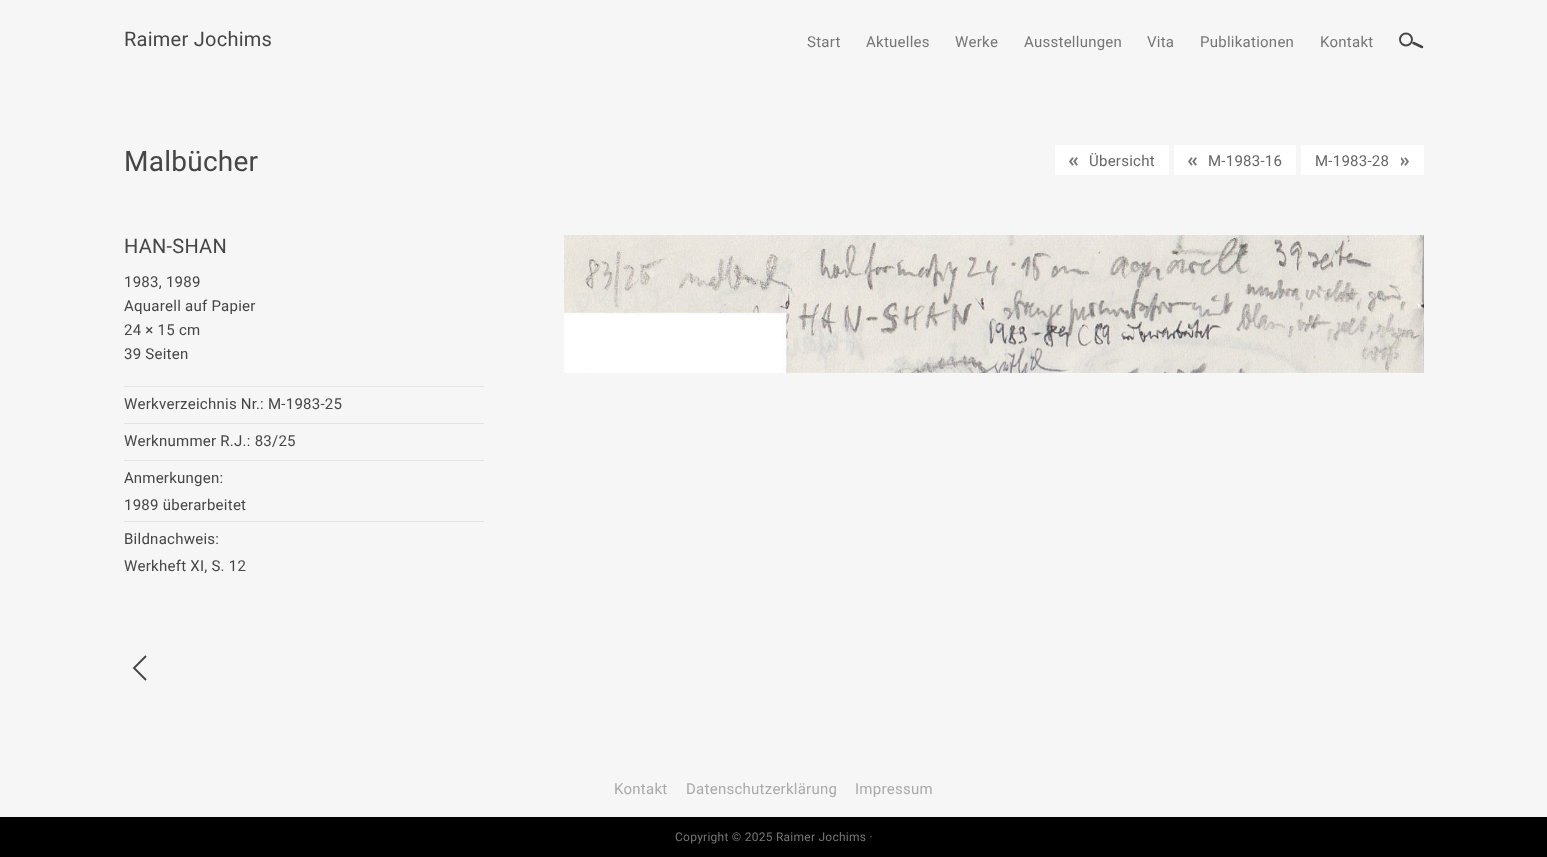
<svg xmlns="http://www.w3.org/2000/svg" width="1547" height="857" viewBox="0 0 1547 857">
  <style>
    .t1 { font: 20px Heebo; letter-spacing: 0.25px; fill: #464646; }
    .t2 { font: 15px Heebo; letter-spacing: 0.25px; fill: #767676; }
    .t3 { font: 28px Heebo; letter-spacing: 0.25px; fill: #464646; }
    .t4 { font: 15px Heebo; letter-spacing: 0.25px; fill: #666; }
    .t5 { font: 15px Heebo; letter-spacing: 0.25px; fill: #464646; }
    .t6 { font: 15px Heebo; letter-spacing: 0.25px; fill: #aaa; }
    .t7 { font: 12px Heebo; letter-spacing: 0.25px; fill: #767676; }
  </style>
  <rect width="100%" height="100%" fill="#f6f6f6"/>
  <text x="124" y="46" class="t1">Raimer Jochims</text>
  <text x="807" y="47" class="t2">Start</text>
  <text x="866" y="47" class="t2">Aktuelles</text>
  <text x="955" y="47" class="t2">Werke</text>
  <text x="1024" y="47" class="t2">Ausstellungen</text>
  <text x="1147" y="47" class="t2">Vita</text>
  <text x="1200" y="47" class="t2">Publikationen</text>
  <text x="1320" y="47" class="t2">Kontakt</text>
  <circle cx="1406" cy="39.5" r="6" fill="none" stroke="#464646" stroke-width="1.9"/>
  <path d="M1413.5 43L1422 47" fill="none" stroke="#464646" stroke-width="2.6" stroke-linecap="round"/>
  <text x="124" y="171" class="t3">Malbücher</text>
  <rect x="1055" y="145" width="114" height="30" fill="#fff"/>
  <image x="1069" y="157" width="9" height="9" href="images/1.png"/>
  <text x="1089" y="166" class="t4">Übersicht</text>
  <rect x="1174" y="145" width="122" height="30" fill="#fff"/>
  <image x="1188" y="157" width="9" height="9" href="images/1.png"/>
  <text x="1208" y="166" class="t4">M-1983-16</text>
  <rect x="1301" y="145" width="123" height="30" fill="#fff"/>
  <text x="1315" y="166" class="t4">M-1983-28</text>
  <image x="1401" y="157" width="8" height="9" href="images/2.png"/>
  <text x="124" y="253" class="t1">HAN-SHAN</text>
  <text x="124" y="287" class="t5">1983, 1989</text>
  <text x="124" y="311" class="t5">Aquarell auf Papier</text>
  <text x="124" y="335" class="t5">24 × 15 cm</text>
  <text x="124" y="359" class="t5">39 Seiten</text>
  <rect x="124" y="386" width="360" height="1" fill="#e5e5e5"/>
  <rect x="124" y="423" width="360" height="1" fill="#e5e5e5"/>
  <text x="124" y="409" class="t5">Werkverzeichnis Nr.: M-1983-25</text>
  <rect x="124" y="460" width="360" height="1" fill="#e5e5e5"/>
  <text x="124" y="446" class="t5">Werknummer R.J.: 83/25</text>
  <rect x="124" y="521" width="360" height="1" fill="#e5e5e5"/>
  <text x="124" y="483" class="t5">Anmerkungen:</text>
  <text x="124" y="510" class="t5">1989 überarbeitet</text>
  <text x="124" y="544" class="t5">Bildnachweis:</text>
  <text x="124" y="571" class="t5">Werkheft XI, S. 12</text>
  <image x="564" y="235" width="860" height="138" href="images/3.png"/>
  <path d="M146 680L134 668L146 656" fill="none" stroke="#464543" stroke-width="1.9"/>
  <text x="614" y="794" class="t6">Kontakt</text>
  <text x="686" y="794" class="t6">Datenschutzerklärung</text>
  <text x="855" y="794" class="t6">Impressum</text>
  <rect x="0" y="817" width="1547" height="40" fill="#000"/>
  <text x="675" y="841" class="t7">Copyright © 2025 Raimer Jochims ·</text>
</svg>
